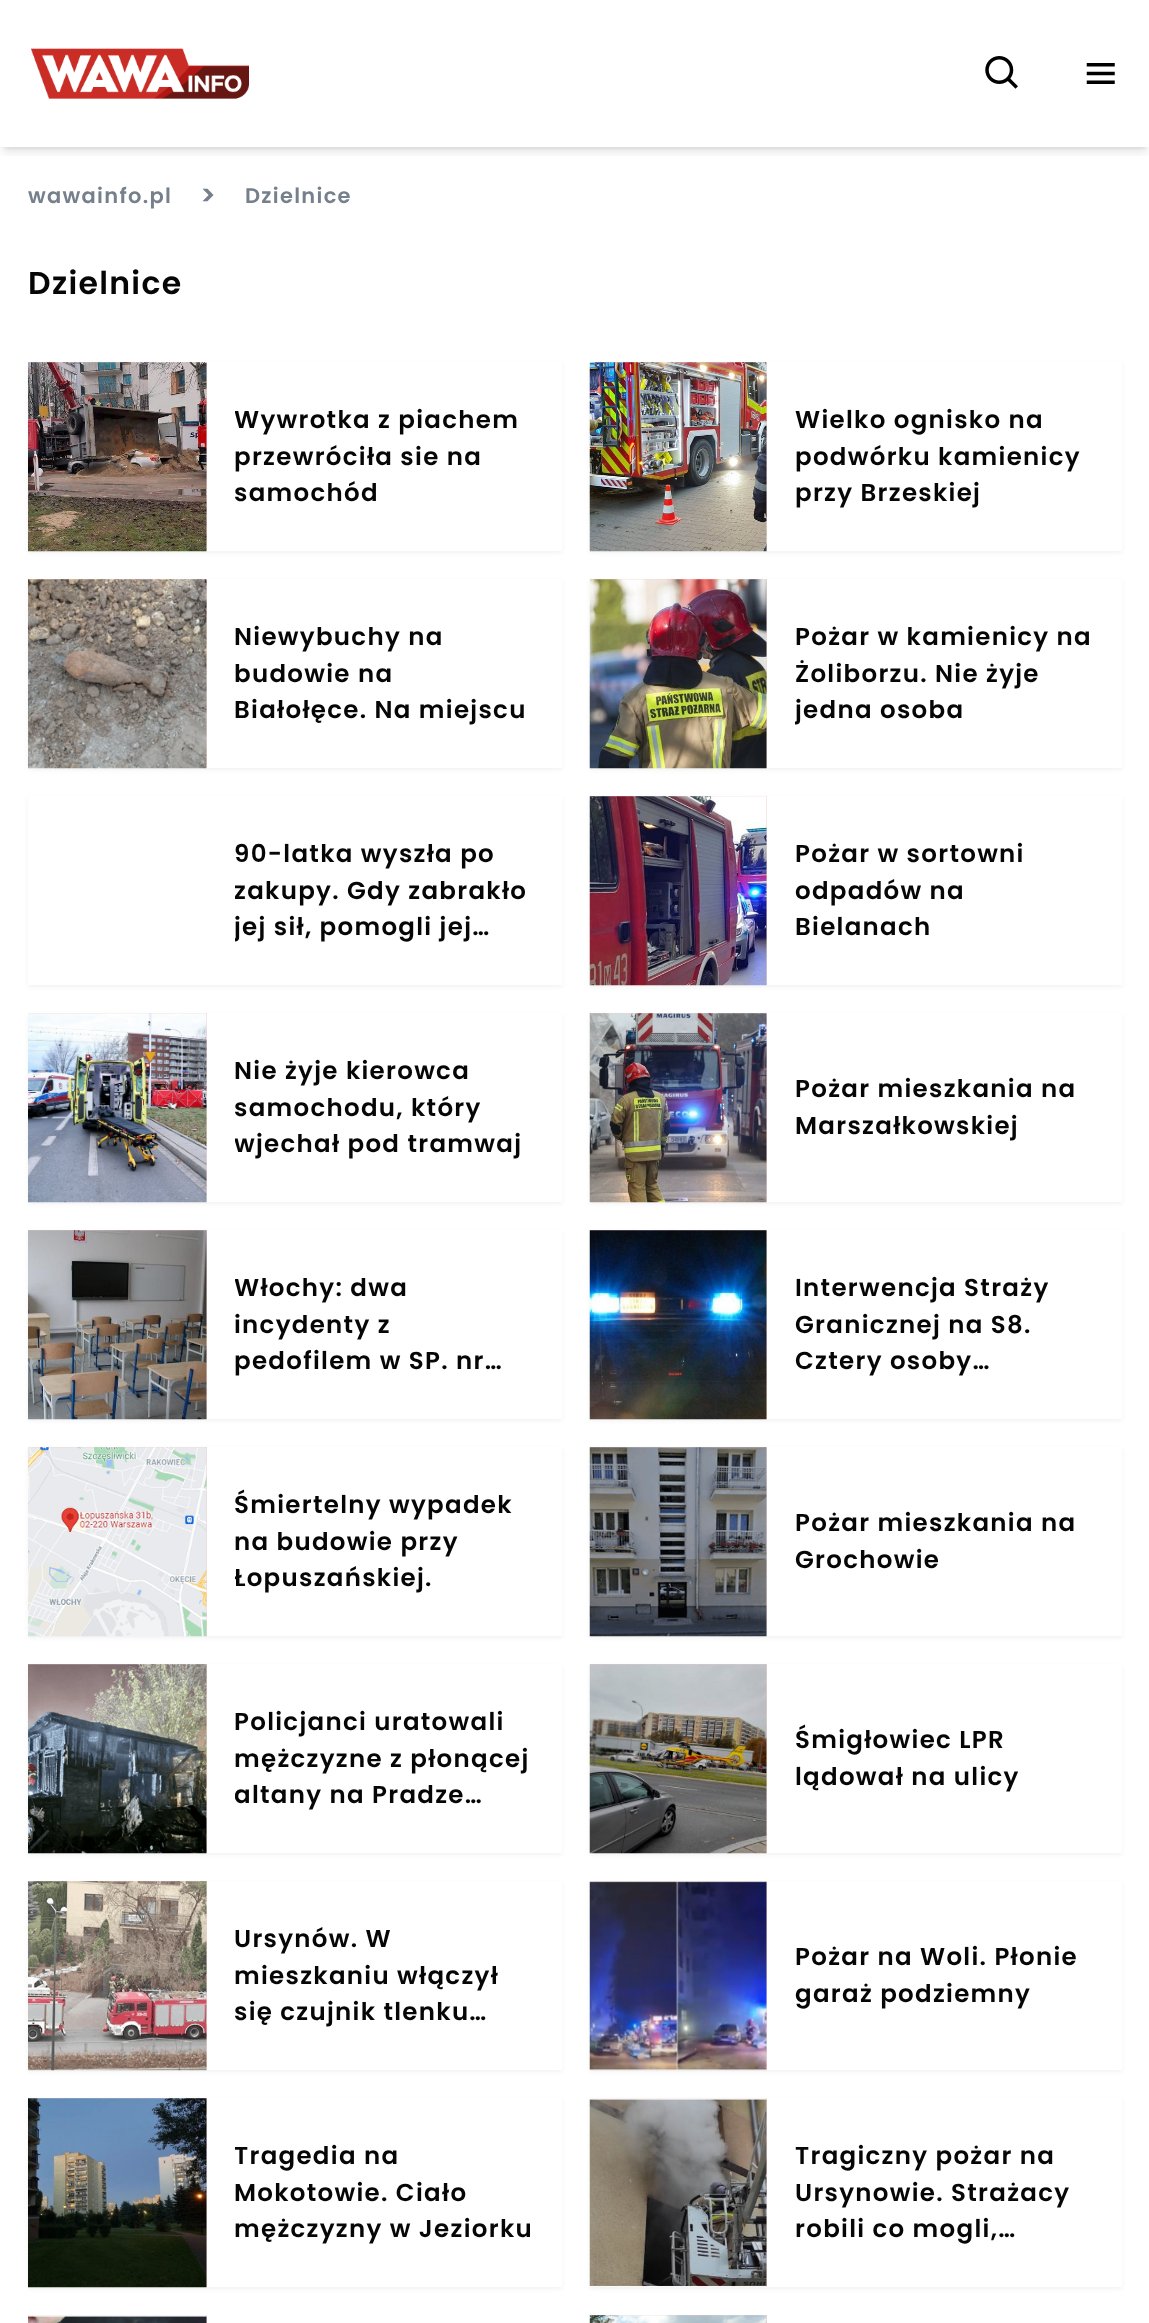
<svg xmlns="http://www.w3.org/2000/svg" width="1149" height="2323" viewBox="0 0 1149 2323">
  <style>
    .t1 { font: 600 21px Poppins; letter-spacing: 1.3px; fill: #76808c; }
    .t2 { font: 600 28px Poppins; letter-spacing: 1.3px; fill: #76808c; }
    .t3 { font: 600 31.5px Poppins; letter-spacing: 1.3px; fill: #070607; }
    .t4 { font: 600 24.5px Poppins; letter-spacing: 1.3px; fill: #070607; }
  </style>
  <defs>
    <clipPath id="clip1"><rect x="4" y="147" width="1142" height="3"/></clipPath>
    <clipPath id="clip2"><rect x="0" y="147" width="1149" height="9"/></clipPath>
    <linearGradient id="g1" gradientUnits="userSpaceOnUse" x1="23" y1="368" x2="212" y2="546"><stop offset="0" stop-color="#efccc9"/><stop offset="1" stop-color="#efd5d2"/></linearGradient>
    <clipPath id="clip3"><rect x="235" y="403" width="299" height="110"/></clipPath>
    <linearGradient id="g2" gradientUnits="userSpaceOnUse" x1="584" y1="369" x2="772" y2="545"><stop offset="0" stop-color="#efccc9"/><stop offset="1" stop-color="#efd5d2"/></linearGradient>
    <linearGradient id="g3" gradientUnits="userSpaceOnUse" x1="23" y1="585" x2="212" y2="763"><stop offset="0" stop-color="#efccc9"/><stop offset="1" stop-color="#efd5d2"/></linearGradient>
    <linearGradient id="g4" gradientUnits="userSpaceOnUse" x1="584" y1="586" x2="772" y2="762"><stop offset="0" stop-color="#efccc9"/><stop offset="1" stop-color="#efd5d2"/></linearGradient>
    <clipPath id="clip4"><rect x="795" y="620" width="299" height="110"/></clipPath>
    <clipPath id="clip5"><rect x="235" y="837" width="299" height="110"/></clipPath>
    <linearGradient id="g5" gradientUnits="userSpaceOnUse" x1="584" y1="803" x2="772" y2="979"><stop offset="0" stop-color="#efccc9"/><stop offset="1" stop-color="#efd5d2"/></linearGradient>
    <linearGradient id="g6" gradientUnits="userSpaceOnUse" x1="23" y1="1019" x2="212" y2="1197"><stop offset="0" stop-color="#efccc9"/><stop offset="1" stop-color="#efd5d2"/></linearGradient>
    <clipPath id="clip6"><rect x="235" y="1054" width="299" height="110"/></clipPath>
    <linearGradient id="g7" gradientUnits="userSpaceOnUse" x1="584" y1="1020" x2="772" y2="1196"><stop offset="0" stop-color="#efccc9"/><stop offset="1" stop-color="#efd5d2"/></linearGradient>
    <linearGradient id="g8" gradientUnits="userSpaceOnUse" x1="23" y1="1236" x2="212" y2="1414"><stop offset="0" stop-color="#efccc9"/><stop offset="1" stop-color="#efd5d2"/></linearGradient>
    <clipPath id="clip7"><rect x="235" y="1271" width="299" height="110"/></clipPath>
    <linearGradient id="g9" gradientUnits="userSpaceOnUse" x1="584" y1="1237" x2="772" y2="1413"><stop offset="0" stop-color="#efccc9"/><stop offset="1" stop-color="#efd5d2"/></linearGradient>
    <linearGradient id="g10" gradientUnits="userSpaceOnUse" x1="23" y1="1453" x2="212" y2="1631"><stop offset="0" stop-color="#efccc9"/><stop offset="1" stop-color="#efd5d2"/></linearGradient>
    <clipPath id="clip8"><rect x="235" y="1488" width="299" height="110"/></clipPath>
    <linearGradient id="g11" gradientUnits="userSpaceOnUse" x1="584" y1="1454" x2="772" y2="1630"><stop offset="0" stop-color="#efccc9"/><stop offset="1" stop-color="#efd5d2"/></linearGradient>
    <linearGradient id="g12" gradientUnits="userSpaceOnUse" x1="23" y1="1670" x2="212" y2="1848"><stop offset="0" stop-color="#efccc9"/><stop offset="1" stop-color="#efd5d2"/></linearGradient>
    <clipPath id="clip9"><rect x="235" y="1705" width="299" height="110"/></clipPath>
    <linearGradient id="g13" gradientUnits="userSpaceOnUse" x1="584" y1="1671" x2="772" y2="1847"><stop offset="0" stop-color="#efccc9"/><stop offset="1" stop-color="#efd5d2"/></linearGradient>
    <linearGradient id="g14" gradientUnits="userSpaceOnUse" x1="23" y1="1887" x2="212" y2="2065"><stop offset="0" stop-color="#efccc9"/><stop offset="1" stop-color="#efd5d2"/></linearGradient>
    <linearGradient id="g15" gradientUnits="userSpaceOnUse" x1="584" y1="1888" x2="772" y2="2064"><stop offset="0" stop-color="#efccc9"/><stop offset="1" stop-color="#efd5d2"/></linearGradient>
    <linearGradient id="g16" gradientUnits="userSpaceOnUse" x1="23" y1="2104" x2="212" y2="2282"><stop offset="0" stop-color="#efccc9"/><stop offset="1" stop-color="#efd5d2"/></linearGradient>
    <clipPath id="clip10"><rect x="235" y="2139" width="299" height="110"/></clipPath>
    <linearGradient id="g17" gradientUnits="userSpaceOnUse" x1="584" y1="2105" x2="772" y2="2281"><stop offset="0" stop-color="#efccc9"/><stop offset="1" stop-color="#efd5d2"/></linearGradient>
    <linearGradient id="g18" gradientUnits="userSpaceOnUse" x1="23" y1="2321" x2="212" y2="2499"><stop offset="0" stop-color="#efccc9"/><stop offset="1" stop-color="#efd5d2"/></linearGradient>
    <linearGradient id="g19" gradientUnits="userSpaceOnUse" x1="584" y1="2322" x2="772" y2="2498"><stop offset="0" stop-color="#efccc9"/><stop offset="1" stop-color="#efd5d2"/></linearGradient>
  </defs>
  <rect width="100%" height="100%" fill="#fff"/>
  <g clip-path="url(#clip1)">
    <rect x="4" y="7" width="1142" height="140" fill="#0000001a" filter="blur(3.5px)"/>
  </g>
  <g clip-path="url(#clip2)">
    <rect x="2" y="9" width="1146" height="143" fill="#0000001a" filter="blur(5px)"/>
  </g>
  <image x="31" y="48" width="218" height="51" href="images/1.png"/>
  <image x="985" y="56" width="33" height="33" href="images/2.png"/>
  <image x="1086" y="63" width="29" height="21" href="images/3.png"/>
  <text x="28" y="203" class="t1">wawainfo.pl</text>
  <text x="200" y="205" class="t2">&gt;</text>
  <text x="245" y="203" class="t1">Dzielnice</text>
  <text x="28" y="294" class="t3">Dzielnice</text>
  <rect x="28" y="364" width="534" height="189" fill="#0000000d" filter="blur(2px)"/>
  <rect x="207" y="362" width="355" height="189" fill="#fff"/>
  <rect x="28" y="362" width="179" height="189" fill="url(#g1)"/>
  <image x="28" y="362" width="179" height="190" href="images/4.png"/>
  <g clip-path="url(#clip3)">
    <text x="234" y="428" class="t4">Wywrotka z piachem</text>
  </g>
  <text x="234" y="465" class="t4">przewróciła sie na</text>
  <text x="234" y="501" class="t4">samochód</text>
  <rect x="590" y="364" width="532" height="189" fill="#0000000d" filter="blur(2px)"/>
  <rect x="767" y="362" width="355" height="189" fill="#fff"/>
  <rect x="590" y="362" width="177" height="189" fill="url(#g2)"/>
  <image x="589" y="362" width="178" height="190" href="images/5.png"/>
  <text x="795" y="428" class="t4">Wielko ognisko na</text>
  <text x="795" y="465" class="t4">podwórku kamienicy</text>
  <text x="795" y="501" class="t4">przy Brzeskiej</text>
  <rect x="28" y="581" width="534" height="189" fill="#0000000d" filter="blur(2px)"/>
  <rect x="207" y="579" width="355" height="189" fill="#fff"/>
  <rect x="28" y="579" width="179" height="189" fill="url(#g3)"/>
  <image x="28" y="579" width="179" height="190" href="images/6.png"/>
  <text x="234" y="645" class="t4">Niewybuchy na</text>
  <text x="234" y="682" class="t4">budowie na</text>
  <text x="234" y="718" class="t4">Białołęce. Na miejscu</text>
  <rect x="590" y="581" width="532" height="189" fill="#0000000d" filter="blur(2px)"/>
  <rect x="767" y="579" width="355" height="189" fill="#fff"/>
  <rect x="590" y="579" width="177" height="189" fill="url(#g4)"/>
  <image x="589" y="579" width="178" height="190" href="images/7.png"/>
  <text x="795" y="645" class="t4">Pożar w kamienicy na</text>
  <text x="795" y="682" class="t4">Żoliborzu. Nie żyje</text>
  <g clip-path="url(#clip4)">
    <text x="795" y="718" class="t4">jedna osoba</text>
  </g>
  <rect x="28" y="798" width="534" height="189" fill="#0000000d" filter="blur(2px)"/>
  <rect x="28" y="796" width="534" height="189" fill="#fff"/>
  <text x="234" y="862" class="t4">90-latka wyszła po</text>
  <g clip-path="url(#clip5)">
    <text x="234" y="899" class="t4">zakupy. Gdy zabrakło</text>
    <text x="234" y="935" class="t4">jej sił, pomogli jej…</text>
  </g>
  <rect x="590" y="798" width="532" height="189" fill="#0000000d" filter="blur(2px)"/>
  <rect x="767" y="796" width="355" height="189" fill="#fff"/>
  <rect x="590" y="796" width="177" height="189" fill="url(#g5)"/>
  <image x="589" y="796" width="178" height="190" href="images/8.png"/>
  <text x="795" y="862" class="t4">Pożar w sortowni</text>
  <text x="795" y="899" class="t4">odpadów na</text>
  <text x="795" y="935" class="t4">Bielanach</text>
  <rect x="28" y="1015" width="534" height="189" fill="#0000000d" filter="blur(2px)"/>
  <rect x="207" y="1013" width="355" height="189" fill="#fff"/>
  <rect x="28" y="1013" width="179" height="189" fill="url(#g6)"/>
  <image x="28" y="1013" width="179" height="190" href="images/9.png"/>
  <text x="234" y="1079" class="t4">Nie żyje kierowca</text>
  <text x="234" y="1116" class="t4">samochodu, który</text>
  <g clip-path="url(#clip6)">
    <text x="234" y="1152" class="t4">wjechał pod tramwaj</text>
  </g>
  <rect x="590" y="1015" width="532" height="189" fill="#0000000d" filter="blur(2px)"/>
  <rect x="767" y="1013" width="355" height="189" fill="#fff"/>
  <rect x="590" y="1013" width="177" height="189" fill="url(#g7)"/>
  <image x="589" y="1013" width="178" height="190" href="images/10.png"/>
  <text x="795" y="1097" class="t4">Pożar mieszkania na</text>
  <text x="795" y="1134" class="t4">Marszałkowskiej</text>
  <rect x="28" y="1232" width="534" height="189" fill="#0000000d" filter="blur(2px)"/>
  <rect x="207" y="1230" width="355" height="189" fill="#fff"/>
  <rect x="28" y="1230" width="179" height="189" fill="url(#g8)"/>
  <image x="28" y="1230" width="179" height="190" href="images/11.png"/>
  <g clip-path="url(#clip7)">
    <text x="234" y="1296" class="t4">Włochy: dwa</text>
  </g>
  <text x="234" y="1333" class="t4">incydenty z</text>
  <text x="234" y="1369" class="t4">pedofilem w SP. nr…</text>
  <rect x="590" y="1232" width="532" height="189" fill="#0000000d" filter="blur(2px)"/>
  <rect x="767" y="1230" width="355" height="189" fill="#fff"/>
  <rect x="590" y="1230" width="177" height="189" fill="url(#g9)"/>
  <image x="589" y="1230" width="178" height="190" href="images/12.png"/>
  <text x="795" y="1296" class="t4">Interwencja Straży</text>
  <text x="795" y="1333" class="t4">Granicznej na S8.</text>
  <text x="795" y="1369" class="t4">Cztery osoby…</text>
  <rect x="28" y="1449" width="534" height="189" fill="#0000000d" filter="blur(2px)"/>
  <rect x="207" y="1447" width="355" height="189" fill="#fff"/>
  <rect x="28" y="1447" width="179" height="189" fill="url(#g10)"/>
  <image x="28" y="1447" width="179" height="190" href="images/13.png"/>
  <text x="234" y="1513" class="t4">Śmiertelny wypadek</text>
  <text x="234" y="1550" class="t4">na budowie przy</text>
  <g clip-path="url(#clip8)">
    <text x="234" y="1586" class="t4">Łopuszańskiej.</text>
  </g>
  <rect x="590" y="1449" width="532" height="189" fill="#0000000d" filter="blur(2px)"/>
  <rect x="767" y="1447" width="355" height="189" fill="#fff"/>
  <rect x="590" y="1447" width="177" height="189" fill="url(#g11)"/>
  <image x="589" y="1447" width="178" height="190" href="images/14.png"/>
  <text x="795" y="1531" class="t4">Pożar mieszkania na</text>
  <text x="795" y="1568" class="t4">Grochowie</text>
  <rect x="28" y="1666" width="534" height="189" fill="#0000000d" filter="blur(2px)"/>
  <rect x="207" y="1664" width="355" height="189" fill="#fff"/>
  <rect x="28" y="1664" width="179" height="189" fill="url(#g12)"/>
  <image x="28" y="1664" width="179" height="190" href="images/15.png"/>
  <text x="234" y="1730" class="t4">Policjanci uratowali</text>
  <text x="234" y="1767" class="t4">mężczyzne z płonącej</text>
  <g clip-path="url(#clip9)">
    <text x="234" y="1803" class="t4">altany na Pradze…</text>
  </g>
  <rect x="590" y="1666" width="532" height="189" fill="#0000000d" filter="blur(2px)"/>
  <rect x="767" y="1664" width="355" height="189" fill="#fff"/>
  <rect x="590" y="1664" width="177" height="189" fill="url(#g13)"/>
  <image x="589" y="1664" width="178" height="190" href="images/16.png"/>
  <text x="795" y="1748" class="t4">Śmigłowiec LPR</text>
  <text x="795" y="1785" class="t4">lądował na ulicy</text>
  <rect x="28" y="1883" width="534" height="189" fill="#0000000d" filter="blur(2px)"/>
  <rect x="207" y="1881" width="355" height="189" fill="#fff"/>
  <rect x="28" y="1881" width="179" height="189" fill="url(#g14)"/>
  <image x="28" y="1881" width="179" height="190" href="images/17.png"/>
  <text x="234" y="1947" class="t4">Ursynów. W</text>
  <text x="234" y="1984" class="t4">mieszkaniu włączył</text>
  <text x="234" y="2020" class="t4">się czujnik tlenku…</text>
  <rect x="590" y="1883" width="532" height="189" fill="#0000000d" filter="blur(2px)"/>
  <rect x="767" y="1881" width="355" height="189" fill="#fff"/>
  <rect x="590" y="1881" width="177" height="189" fill="url(#g15)"/>
  <image x="589" y="1881" width="178" height="190" href="images/18.png"/>
  <text x="795" y="1965" class="t4">Pożar na Woli. Płonie</text>
  <text x="795" y="2002" class="t4">garaż podziemny</text>
  <rect x="28" y="2100" width="534" height="189" fill="#0000000d" filter="blur(2px)"/>
  <rect x="207" y="2098" width="355" height="189" fill="#fff"/>
  <rect x="28" y="2098" width="179" height="189" fill="url(#g16)"/>
  <image x="28" y="2098" width="179" height="190" href="images/19.png"/>
  <g clip-path="url(#clip10)">
    <text x="234" y="2164" class="t4">Tragedia na</text>
  </g>
  <text x="234" y="2201" class="t4">Mokotowie. Ciało</text>
  <text x="234" y="2237" class="t4">mężczyzny w Jeziorku</text>
  <rect x="590" y="2100" width="532" height="189" fill="#0000000d" filter="blur(2px)"/>
  <rect x="767" y="2098" width="355" height="189" fill="#fff"/>
  <rect x="590" y="2098" width="177" height="189" fill="url(#g17)"/>
  <image x="589" y="2098" width="178" height="189" href="images/20.png"/>
  <text x="795" y="2164" class="t4">Tragiczny pożar na</text>
  <text x="795" y="2201" class="t4">Ursynowie. Strażacy</text>
  <text x="795" y="2237" class="t4">robili co mogli,…</text>
  <rect x="28" y="2315" width="179" height="8" fill="url(#g18)"/>
  <image x="28" y="2315" width="179" height="8" href="images/21.png"/>
  <rect x="590" y="2315" width="177" height="8" fill="url(#g19)"/>
  <image x="589" y="2315" width="178" height="8" href="images/22.png"/>
</svg>
